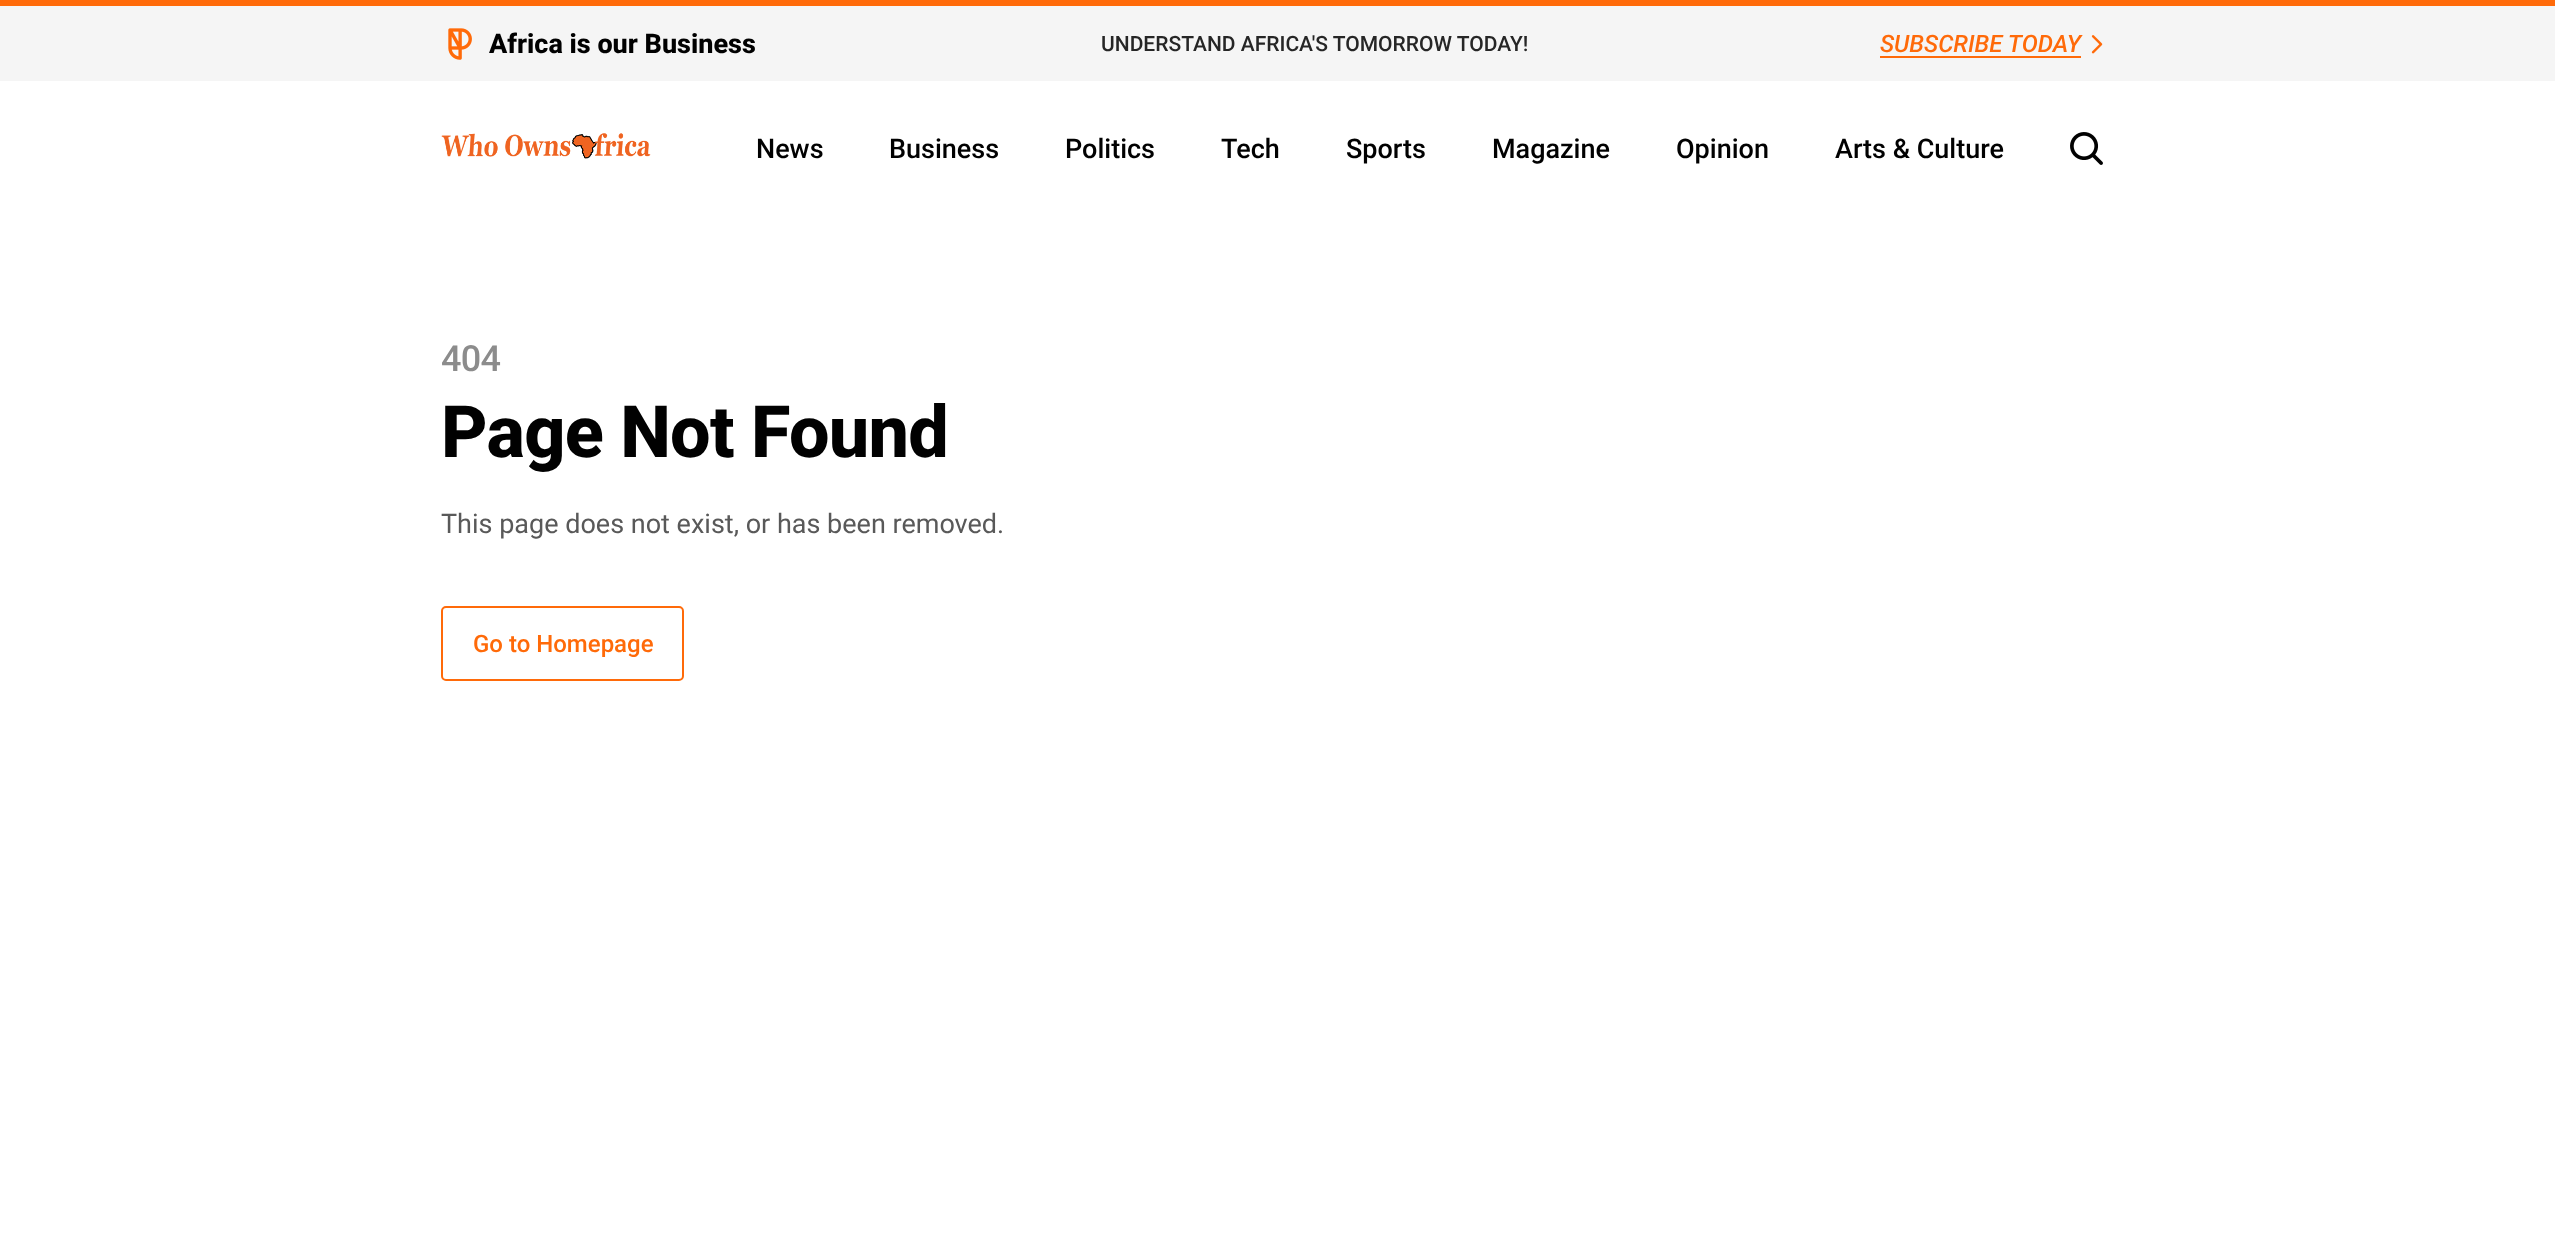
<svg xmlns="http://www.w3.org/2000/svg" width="2555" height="1251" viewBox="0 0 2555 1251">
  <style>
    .t1 { font: 800 27px Roboto; fill: #010101; }
    .t2 { font: 500 21px Roboto; fill: #262626; }
    .t3 { font: italic 500 24px Roboto; fill: #ff6a09; }
    .t4 { font: 500 27px Roboto; fill: #010101; }
    .t5 { font: 500 36px Roboto; letter-spacing: -0.75px; fill: #8c8c8c; }
    .t6 { font: 800 72px Roboto; letter-spacing: -0.75px; fill: #010101; }
    .t7 { font: 27px Roboto; fill: #595959; }
    .t8 { font: 500 24px Roboto; fill: #ff6a09; }
  </style>
  <rect width="100%" height="100%" fill="#fff"/>
  <rect x="0" y="6" width="2555" height="75" fill="#f5f5f5"/>
  <rect x="0" y="0" width="2555" height="6" fill="#ff6a09"/>
  <image x="448" y="28" width="24" height="32" href="images/1.png"/>
  <text x="489" y="53" class="t1">Africa is our Business</text>
  <text x="1101" y="51" class="t2">UNDERSTAND AFRICA'S TOMORROW TODAY!</text>
  <text x="1880" y="52" class="t3">SUBSCRIBE TODAY</text>
  <rect x="1880" y="56" width="201" height="2" fill="#ff6a09"/>
  <image x="2091" y="35" width="12" height="19" href="images/2.png"/>
  <image x="441" y="133" width="210" height="26" href="images/3.png"/>
  <text x="756" y="158" class="t4">News</text>
  <text x="889" y="158" class="t4">Business</text>
  <text x="1065" y="158" class="t4">Politics</text>
  <text x="1221" y="158" class="t4">Tech</text>
  <text x="1346" y="158" class="t4">Sports</text>
  <text x="1492" y="158" class="t4">Magazine</text>
  <text x="1676" y="158" class="t4">Opinion</text>
  <text x="1835" y="158" class="t4">Arts &amp; Culture</text>
  <image x="2070" y="132" width="33" height="33" href="images/4.png"/>
  <text x="441" y="371" class="t5">404</text>
  <text x="441" y="457" class="t6">Page Not Found</text>
  <text x="441" y="533" class="t7">This page does not exist, or has been removed.</text>
  <rect x="442" y="607" width="241" height="73" rx="4" fill="none" stroke="#ff6a09" stroke-width="2"/>
  <text x="473" y="652" class="t8">Go to Homepage</text>
</svg>
